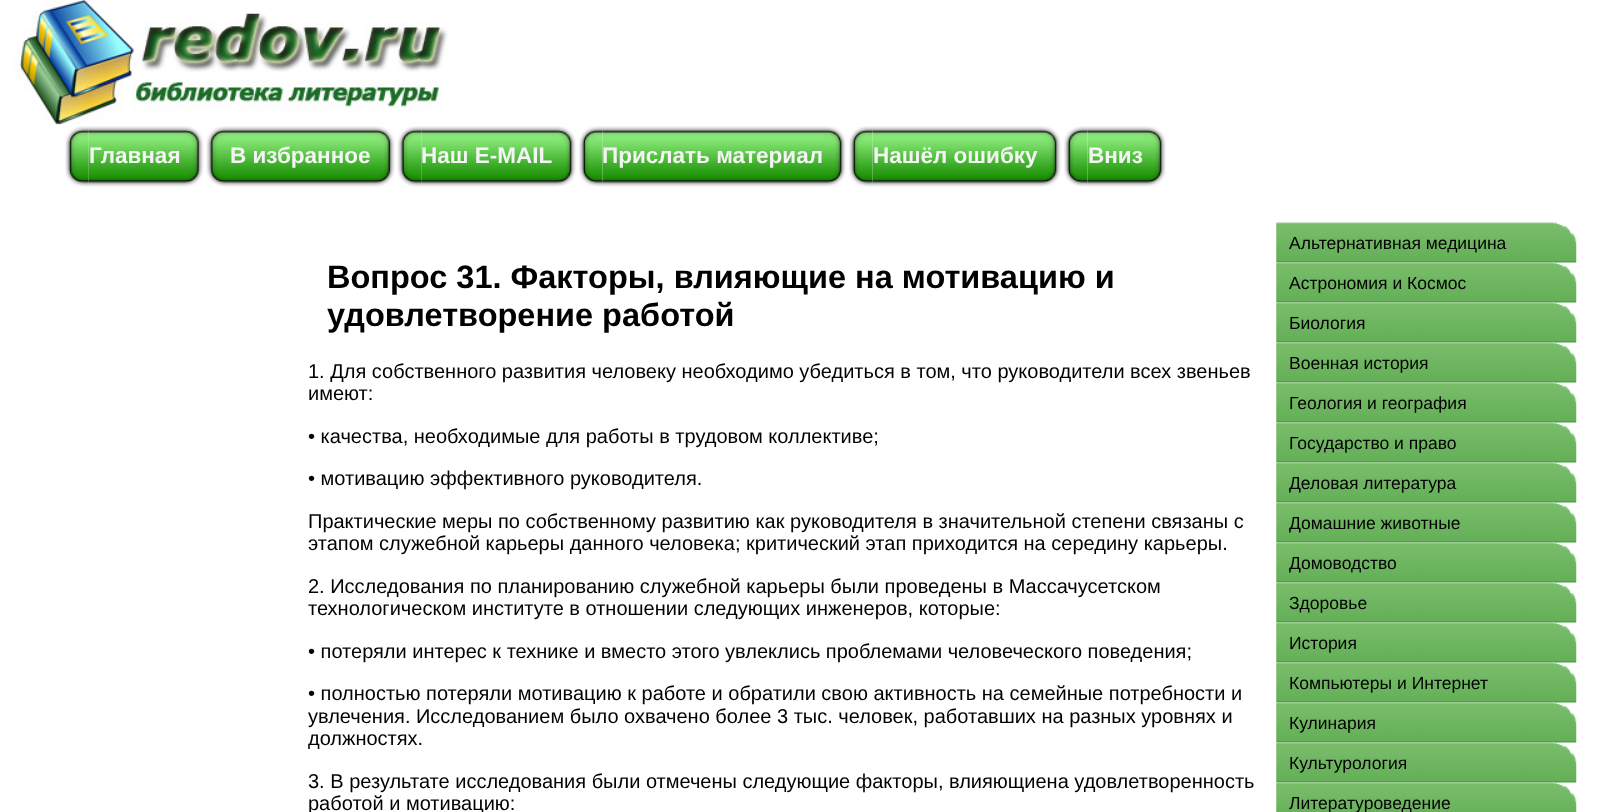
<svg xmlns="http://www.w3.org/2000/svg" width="1602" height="812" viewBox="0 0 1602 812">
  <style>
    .t1 { font: bold 22.5px Liberation Sans; fill: #f4f4f4; }
    .t2 { font: bold 32.5px Liberation Sans; fill: #000; }
    .t3 { font: 20px Liberation Sans; fill: #000; }
    .t4 { font: 17.5px Liberation Sans; fill: #000; }
  </style>
  <rect width="100%" height="100%" fill="#fff"/>
  <image x="14" y="0" width="434" height="125" href="images/1.png"/>
  <image x="65" y="126" width="24" height="61" href="images/2.png"/>
  <image x="88" y="126" width="116" height="61" href="images/3.png"/>
  <text x="89" y="163" class="t1">Главная</text>
  <image x="206" y="126" width="24" height="61" href="images/4.png"/>
  <image x="230" y="126" width="165" height="61" href="images/5.png"/>
  <text x="230" y="163" class="t1">В избранное</text>
  <image x="397" y="126" width="25" height="61" href="images/6.png"/>
  <image x="421" y="126" width="155" height="61" href="images/7.png"/>
  <text x="421" y="163" class="t1">Наш E-MAIL</text>
  <image x="579" y="126" width="24" height="61" href="images/8.png"/>
  <image x="602" y="126" width="244" height="61" href="images/9.png"/>
  <text x="602" y="163" class="t1">Прислать материал</text>
  <image x="849" y="126" width="24" height="61" href="images/10.png"/>
  <image x="872" y="126" width="189" height="61" href="images/11.png"/>
  <text x="873" y="163" class="t1">Нашёл ошибку</text>
  <image x="1064" y="126" width="24" height="61" href="images/8.png"/>
  <image x="1087" y="126" width="79" height="61" href="images/12.png"/>
  <text x="1088" y="163" class="t1">Вниз</text>
  <text x="327" y="288" class="t2">Вопрос 31. Факторы, влияющие на мотивацию и</text>
  <text x="327" y="326" class="t2">удовлетворение работой</text>
  <text x="308" y="378" class="t3">1. Для собственного развития человеку необходимо убедиться в том, что руководители всех звеньев</text>
  <text x="308" y="400" class="t3">имеют:</text>
  <text x="308" y="443" class="t3">• качества, необходимые для работы в трудовом коллективе;</text>
  <text x="308" y="485" class="t3">• мотивацию эффективного руководителя.</text>
  <text x="308" y="528" class="t3">Практические меры по собственному развитию как руководителя в значительной степени связаны с</text>
  <text x="308" y="550" class="t3">этапом служебной карьеры данного человека; критический этап приходится на середину карьеры.</text>
  <text x="308" y="593" class="t3">2. Исследования по планированию служебной карьеры были проведены в Массачусетском</text>
  <text x="308" y="615" class="t3">технологическом институте в отношении следующих инженеров, которые:</text>
  <text x="308" y="658" class="t3">• потеряли интерес к технике и вместо этого увлеклись проблемами человеческого поведения;</text>
  <text x="308" y="700" class="t3">• полностью потеряли мотивацию к работе и обратили свою активность на семейные потребности и</text>
  <text x="308" y="723" class="t3">увлечения. Исследованием было охвачено более 3 тыс. человек, работавших на разных уровнях и</text>
  <text x="308" y="745" class="t3">должностях.</text>
  <text x="308" y="788" class="t3">3. В результате исследования были отмечены следующие факторы, влияющиена удовлетворенность</text>
  <text x="308" y="810" class="t3">работой и мотивацию:</text>
  <image x="1276" y="222" width="301" height="41" href="images/13.png"/>
  <text x="1289" y="249" class="t4">Альтернативная медицина</text>
  <image x="1276" y="262" width="301" height="41" href="images/14.png"/>
  <text x="1289" y="289" class="t4">Астрономия и Космос</text>
  <image x="1276" y="302" width="301" height="41" href="images/14.png"/>
  <text x="1289" y="329" class="t4">Биология</text>
  <image x="1276" y="342" width="301" height="41" href="images/14.png"/>
  <text x="1289" y="369" class="t4">Военная история</text>
  <image x="1276" y="382" width="301" height="41" href="images/14.png"/>
  <text x="1289" y="409" class="t4">Геология и география</text>
  <image x="1276" y="422" width="301" height="41" href="images/14.png"/>
  <text x="1289" y="449" class="t4">Государство и право</text>
  <image x="1276" y="462" width="301" height="41" href="images/14.png"/>
  <text x="1289" y="489" class="t4">Деловая литература</text>
  <image x="1276" y="502" width="301" height="41" href="images/14.png"/>
  <text x="1289" y="529" class="t4">Домашние животные</text>
  <image x="1276" y="542" width="301" height="41" href="images/14.png"/>
  <text x="1289" y="569" class="t4">Домоводство</text>
  <image x="1276" y="582" width="301" height="41" href="images/15.png"/>
  <text x="1289" y="609" class="t4">Здоровье</text>
  <image x="1276" y="622" width="301" height="41" href="images/14.png"/>
  <text x="1289" y="649" class="t4">История</text>
  <image x="1276" y="662" width="301" height="41" href="images/14.png"/>
  <text x="1289" y="689" class="t4">Компьютеры и Интернет</text>
  <image x="1276" y="702" width="301" height="41" href="images/14.png"/>
  <text x="1289" y="729" class="t4">Кулинария</text>
  <image x="1276" y="742" width="301" height="41" href="images/14.png"/>
  <text x="1289" y="769" class="t4">Культурология</text>
  <image x="1276" y="782" width="301" height="30" href="images/16.png"/>
  <text x="1289" y="809" class="t4">Литературоведение</text>
</svg>
